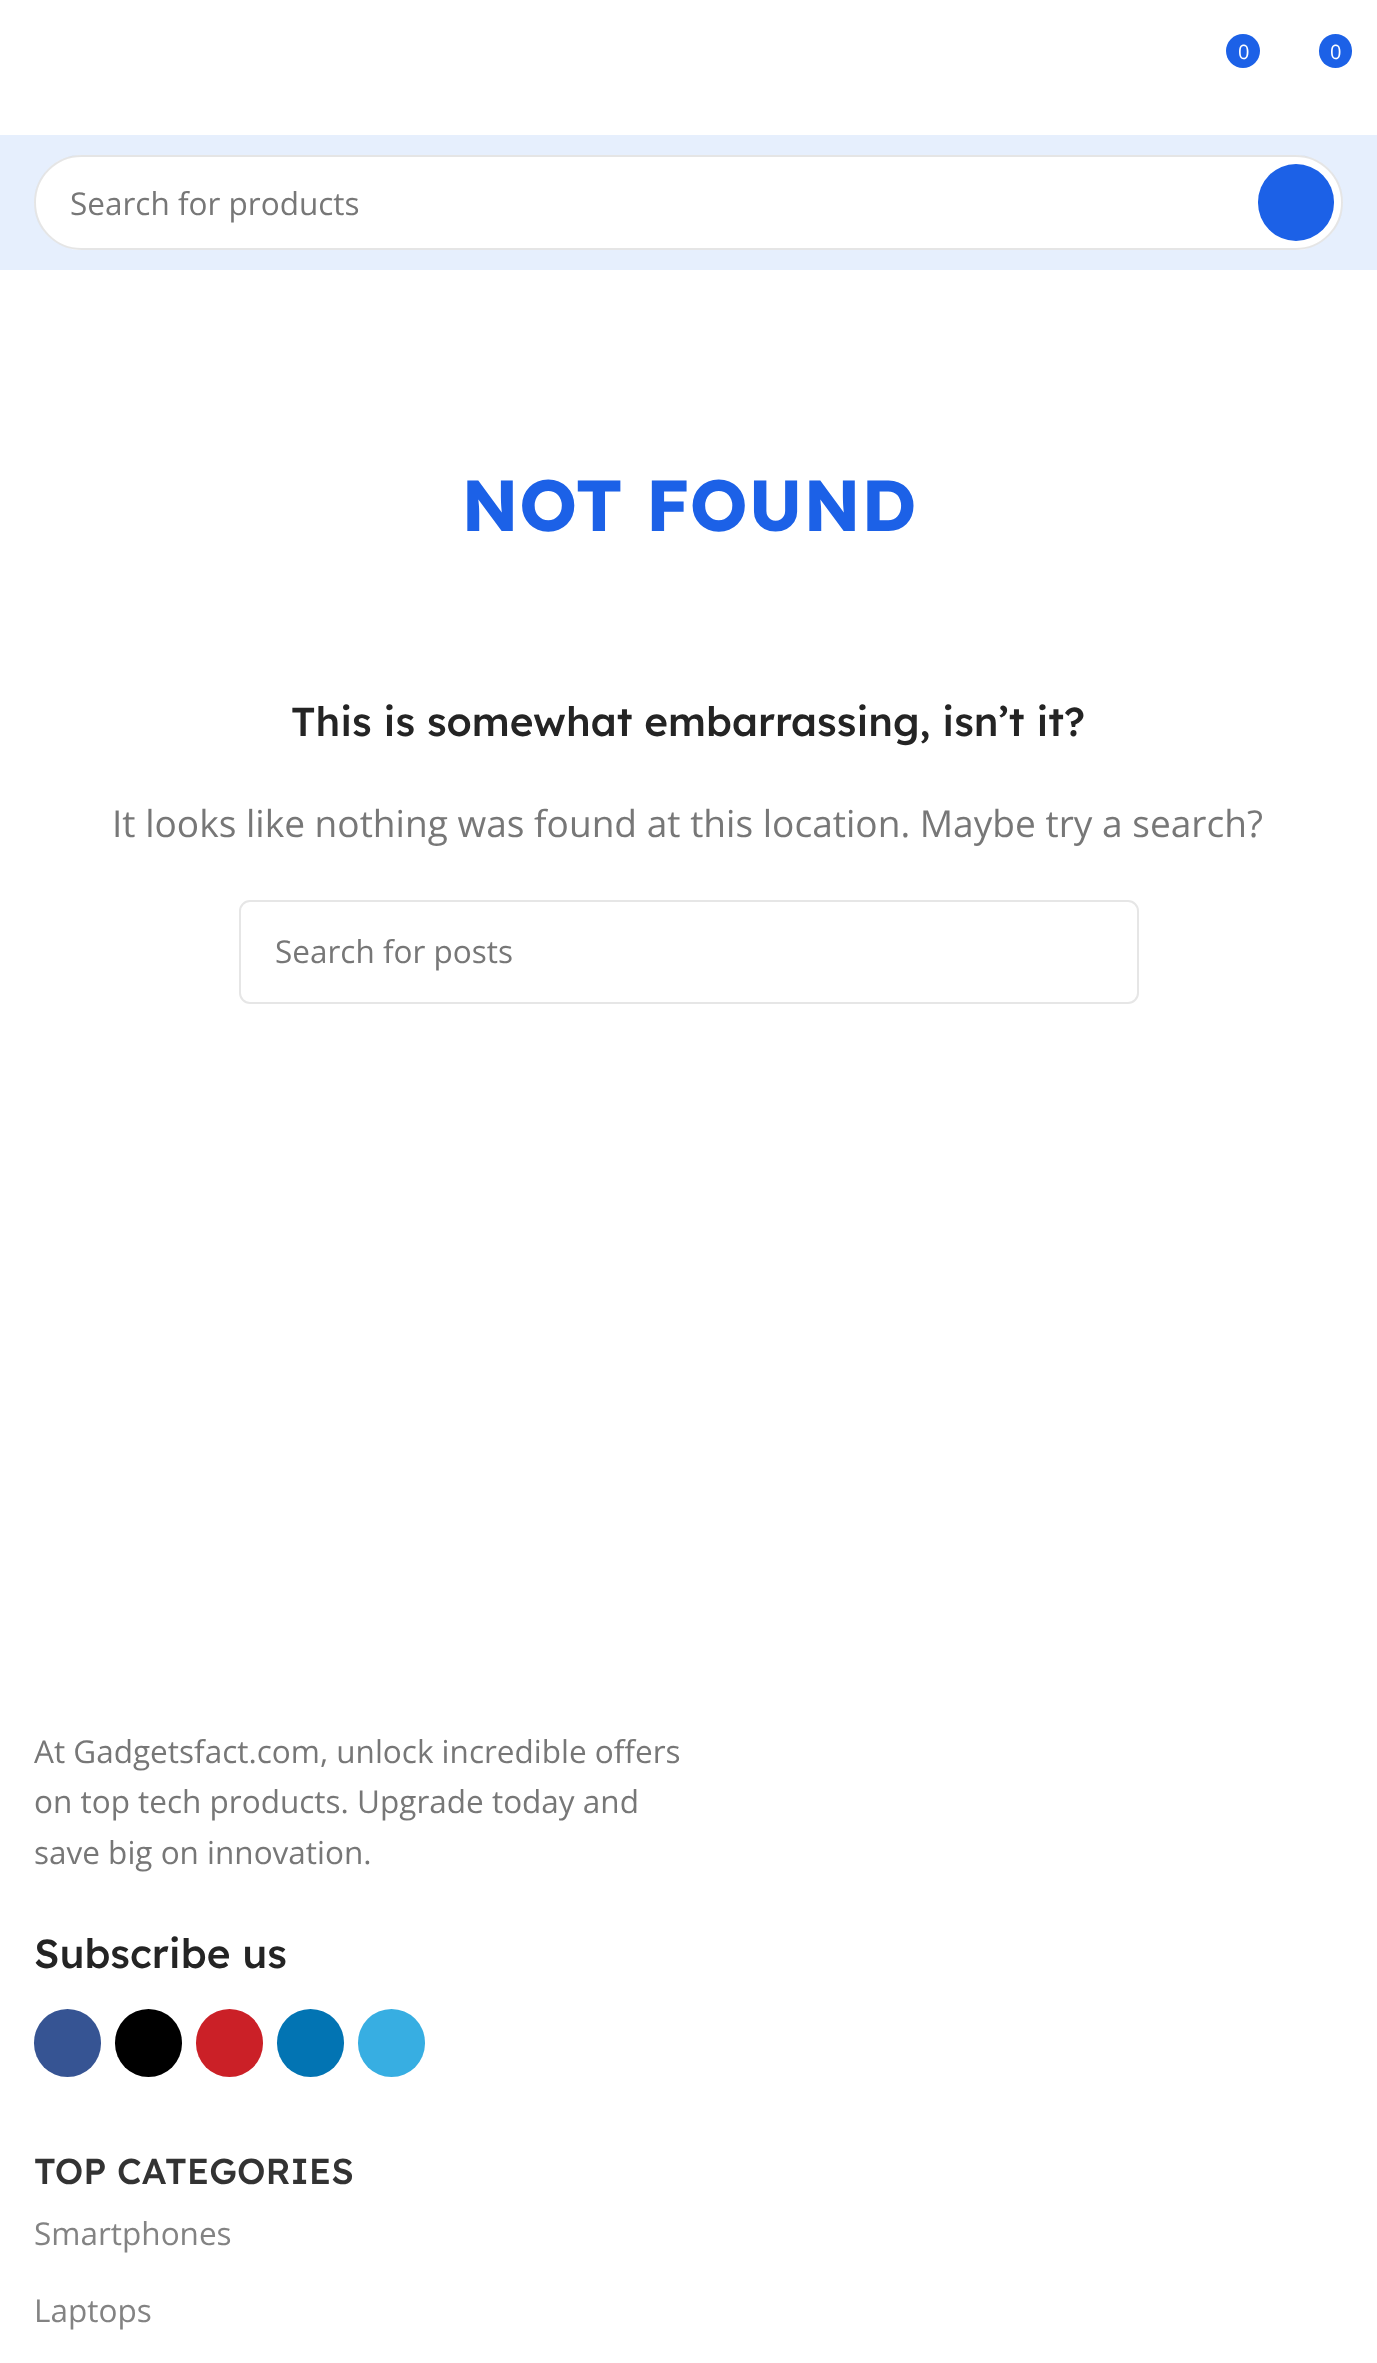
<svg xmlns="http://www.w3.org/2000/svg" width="1377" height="2363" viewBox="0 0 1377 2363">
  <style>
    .t1 { font: 20px Open Sans; fill: #fff; }
    .t2 { font: 31.5px Open Sans; fill: #777; }
    .t3 { font: bold 72px Lexend Deca; fill: #1c61e7; }
    .t4 { font: 500 40.5px Lexend Deca; fill: #242424; }
    .t5 { font: 37.1px Open Sans; fill: #777; }
    .t6 { font: 500 36px Lexend Deca; fill: #333; }
    .t7 { font: 31.5px Open Sans; fill: #838383; }
  </style>
  <rect width="100%" height="100%" fill="#fff"/>
  <circle cx="1243" cy="51" r="17" fill="#1c61e7"/>
  <text x="1238" y="59" class="t1">0</text>
  <rect x="1319" y="34" width="33" height="34" rx="16.5" fill="#1c61e7"/>
  <text x="1330" y="59" class="t1">0</text>
  <rect x="0" y="135" width="1377" height="135" fill="#e6effd"/>
  <rect x="34" y="155" width="1309" height="95" rx="47.5" fill="#fff"/>
  <rect x="35" y="156" width="1307" height="93" rx="46.5" fill="none" stroke="#0000001a" stroke-width="2"/>
  <text x="70" y="215" class="t2">Search for products</text>
  <rect x="1258" y="164" width="76" height="77" rx="38" fill="#1c61e7"/>
  <text x="461" y="531" class="t3">NOT FOUND</text>
  <text x="291" y="736" class="t4">This is somewhat embarrassing, isn’t it?</text>
  <text x="112" y="837" class="t5">It looks like nothing was found at this location. Maybe try a search?</text>
  <rect x="240" y="901" width="898" height="102" rx="10" fill="none" stroke="#e6e6e6" stroke-width="2"/>
  <text x="275" y="963" class="t2">Search for posts</text>
  <text x="34" y="1763" class="t2">At Gadgetsfact.com, unlock incredible offers</text>
  <text x="34" y="1813" class="t2">on top tech products. Upgrade today and</text>
  <text x="34" y="1864" class="t2">save big on innovation.</text>
  <text x="34" y="1968" class="t4">Subscribe us</text>
  <rect x="34" y="2009" width="67" height="68" rx="33.5" fill="#365493"/>
  <rect x="115" y="2009" width="67" height="68" rx="33.5" fill="#000"/>
  <rect x="196" y="2009" width="67" height="68" rx="33.5" fill="#cb2027"/>
  <rect x="277" y="2009" width="67" height="68" rx="33.5" fill="#0274b3"/>
  <rect x="358" y="2009" width="67" height="68" rx="33.5" fill="#37aee2"/>
  <text x="34" y="2184" class="t6">TOP CATEGORIES</text>
  <text x="34" y="2245" class="t7">Smartphones</text>
  <text x="34" y="2322" class="t7">Laptops</text>
</svg>
